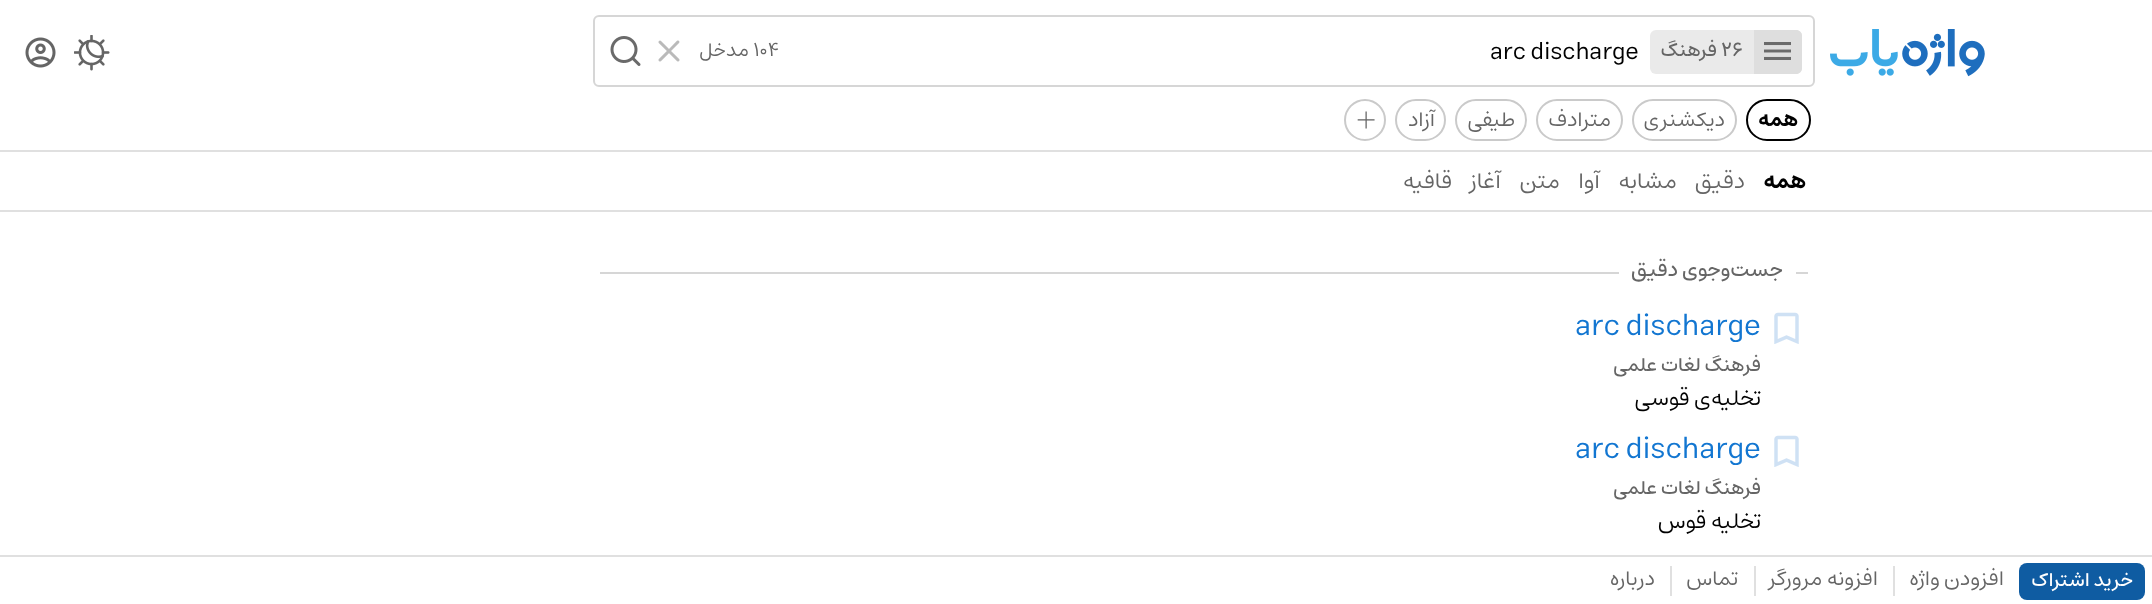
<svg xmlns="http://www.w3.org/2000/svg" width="2152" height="604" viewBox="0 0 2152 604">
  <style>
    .t1 { font: 500 19.5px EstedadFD; fill: #656565; }
    .t2 { font: 500 19.5px EstedadFD; direction: rtl; fill: #656565; }
    .t3 { font: 24px EstedadFD; fill: #000; }
    .t4 { font: 19.5px EstedadFD; fill: #656565; }
    .t5 { font: 19.5px EstedadFD; direction: rtl; fill: #656565; }
    .t6 { font: bold 21px EstedadFD; direction: rtl; fill: #000; }
    .t7 { font: 21px EstedadFD; direction: rtl; fill: #656565; }
    .t8 { font: 100 42px EstedadFD; fill: #656565; }
    .t9 { font: bold 22.5px EstedadFD; direction: rtl; fill: #000; }
    .t10 { font: 22.5px EstedadFD; direction: rtl; fill: #656565; }
    .t11 { font: 500 21px EstedadFD; direction: rtl; fill: #656565; }
    .t12 { font: 30px EstedadFD; fill: #1276d1; }
    .t13 { font: 22.5px EstedadFD; direction: rtl; fill: #000; }
    .t14 { font: 500 19.5px EstedadFD; direction: rtl; fill: #fff; }
  </style>
  <rect width="100%" height="100%" fill="#fff"/>
  <rect x="0" y="210" width="2152" height="2" fill="#e0e0e0"/>
  <image x="1830" y="29" width="155" height="48" href="images/1.png"/>
  <rect x="594" y="16" width="1220" height="70" rx="5" fill="none" stroke="#d6d6d6" stroke-width="2"/>
  <rect x="1650" y="30" width="152" height="44" rx="6" fill="#eaeaea"/>
  <path d="M1754 30H1796C1799.5 30 1802 32.5 1802 36V68C1802 71.5 1799.5 74 1796 74H1754Z" fill="#dedede"/>
  <image x="1764" y="42" width="27" height="18" href="images/2.png"/>
  <text x="1721" y="56" class="t1">26</text>
  <text x="1717" y="56" class="t2">فرهنگ</text>
  <text x="1490" y="59" class="t3">arc discharge</text>
  <text x="753" y="56" class="t4">104</text>
  <text x="749" y="56" class="t5">مدخل</text>
  <image x="658" y="40" width="22" height="22" href="images/3.png"/>
  <image x="610" y="36" width="31" height="30" href="images/4.png"/>
  <image x="74" y="35" width="36" height="36" href="images/5.png"/>
  <image x="25" y="37" width="31" height="31" href="images/6.png"/>
  <rect x="1747" y="100" width="63" height="40" rx="20" fill="none" stroke="#000" stroke-width="2"/>
  <text x="1798" y="126" class="t6">همه</text>
  <rect x="1633" y="100" width="103" height="40" rx="20" fill="none" stroke="#cacaca" stroke-width="2"/>
  <text x="1725" y="126" class="t7">دیکشنری</text>
  <rect x="1537" y="100" width="85" height="40" rx="20" fill="none" stroke="#cacaca" stroke-width="2"/>
  <text x="1611" y="126" class="t7">مترادف</text>
  <rect x="1456" y="100" width="70" height="40" rx="20" fill="none" stroke="#cacaca" stroke-width="2"/>
  <text x="1515" y="126" class="t7">طیفی</text>
  <rect x="1396" y="100" width="49" height="40" rx="20" fill="none" stroke="#cacaca" stroke-width="2"/>
  <text x="1435" y="126" class="t7">آزاد</text>
  <circle cx="1365" cy="120" r="20" fill="none" stroke="#cacaca" stroke-width="2"/>
  <text x="1354" y="132" class="t8">+</text>
  <rect x="0" y="150" width="2152" height="2" fill="#e0e0e0"/>
  <text x="1806" y="188" class="t9">همه</text>
  <text x="1745" y="188" class="t10">دقیق</text>
  <text x="1677" y="188" class="t10">مشابه</text>
  <text x="1600" y="188" class="t10">آوا</text>
  <text x="1560" y="188" class="t10">متن</text>
  <text x="1501" y="188" class="t10">آغاز</text>
  <text x="1452" y="188" class="t10">قافیه</text>
  <rect x="1796" y="272" width="12" height="2" fill="#d6d6d6"/>
  <text x="1783" y="276" class="t11">جست‌وجوی دقیق</text>
  <rect x="600" y="272" width="1019" height="2" fill="#d6d6d6"/>
  <image x="1774" y="312" width="25" height="32" href="images/7.png"/>
  <text x="1575" y="335" class="t12">arc discharge</text>
  <text x="1761" y="371" class="t2">فرهنگ لغات علمی</text>
  <text x="1761" y="405" class="t13">تخلیه‌ی قوسی</text>
  <image x="1774" y="435" width="25" height="32" href="images/7.png"/>
  <text x="1575" y="458" class="t12">arc discharge</text>
  <text x="1761" y="494" class="t2">فرهنگ لغات علمی</text>
  <text x="1761" y="528" class="t13">تخلیه قوس</text>
  <rect x="0" y="555" width="2152" height="2" fill="#e0e0e0"/>
  <rect x="2019" y="563" width="126" height="37" rx="8" fill="#0f5ca2"/>
  <text x="2133" y="586" class="t14">خرید اشتراک</text>
  <text x="2004" y="585" class="t7">افزودن واژه</text>
  <rect x="1893" y="566" width="2" height="30" fill="#e0e0e0"/>
  <text x="1878" y="585" class="t7">افزونه مرورگر</text>
  <rect x="1754" y="566" width="2" height="30" fill="#e0e0e0"/>
  <text x="1738" y="585" class="t7">تماس</text>
  <rect x="1670" y="566" width="2" height="30" fill="#e0e0e0"/>
  <text x="1655" y="585" class="t7">درباره</text>
</svg>
